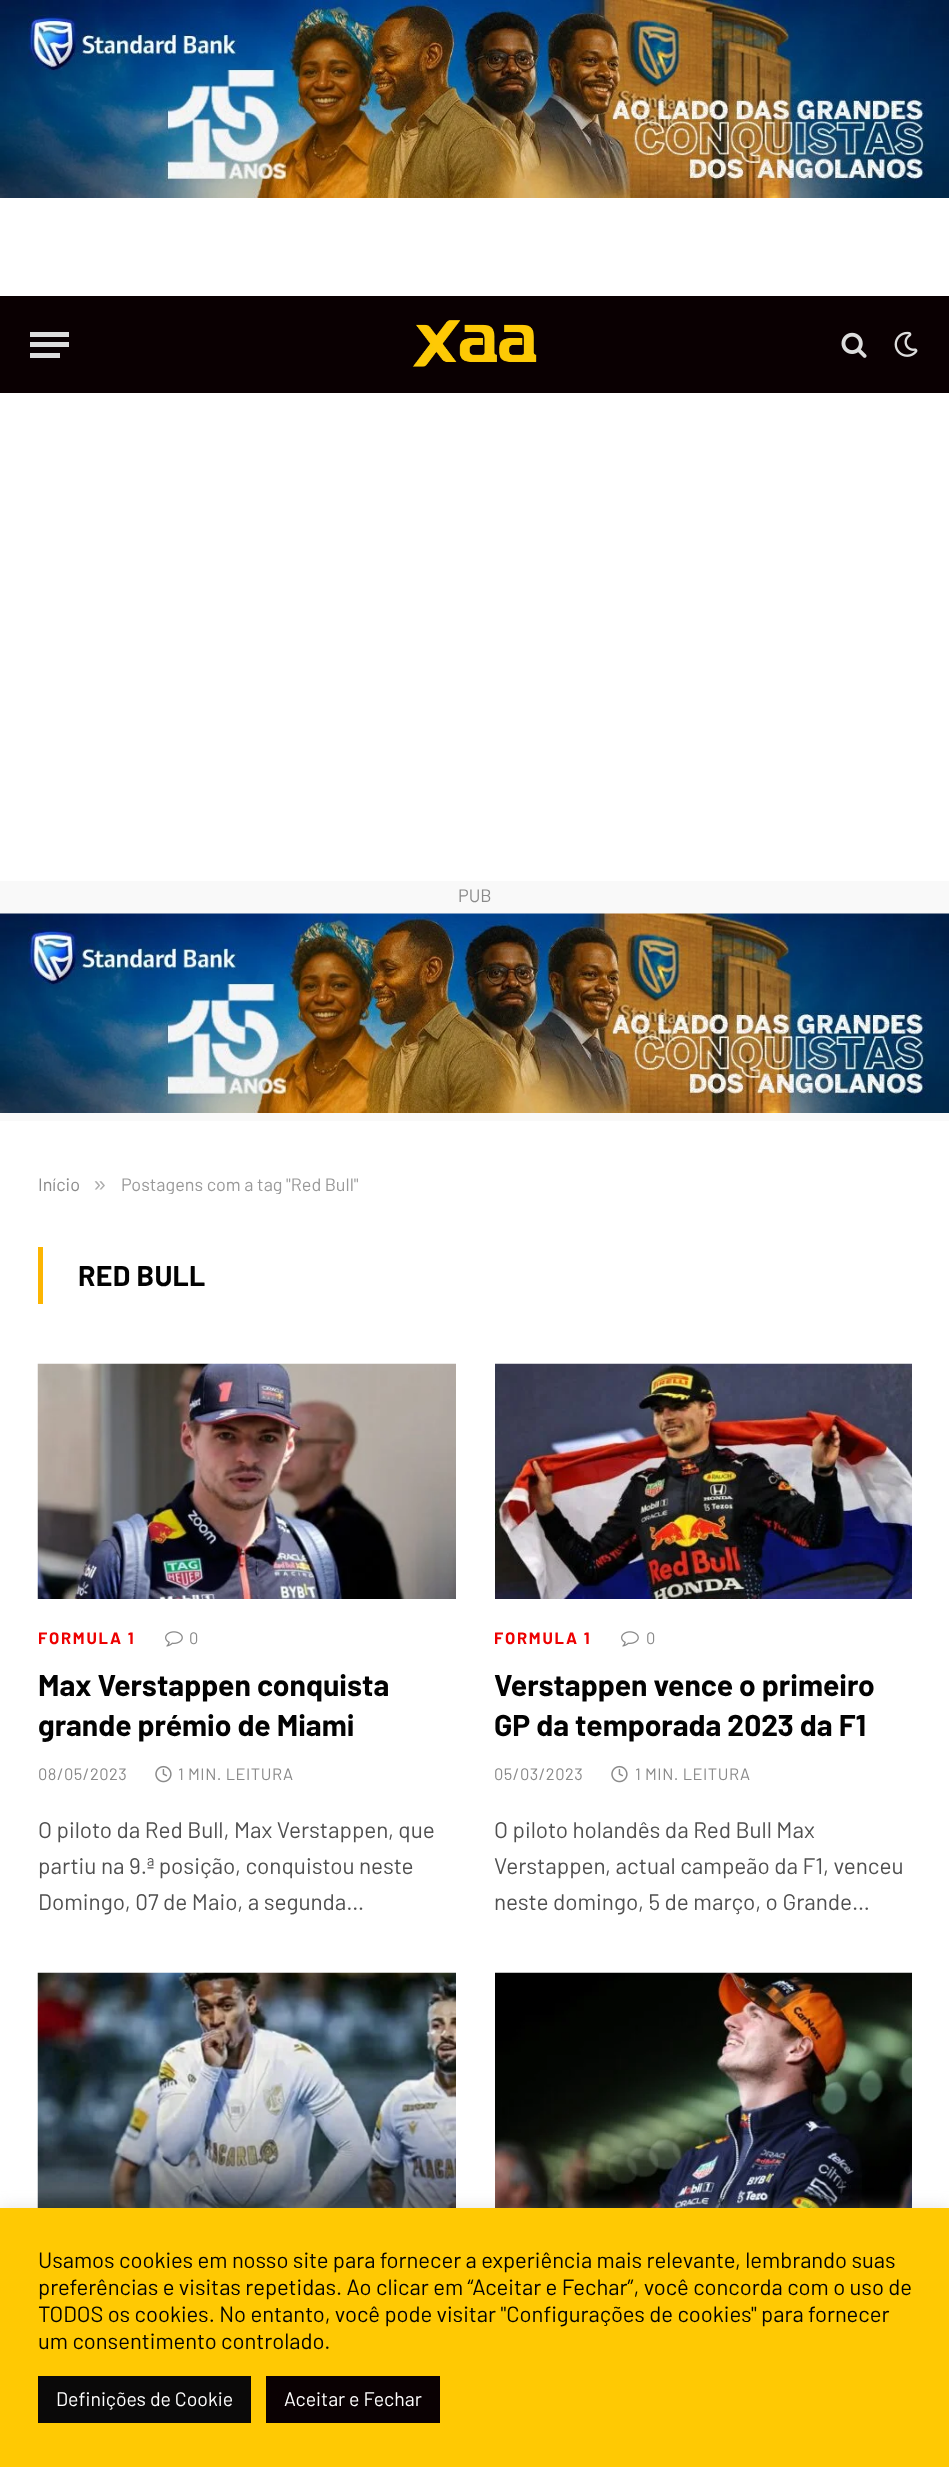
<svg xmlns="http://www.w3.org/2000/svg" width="949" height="2467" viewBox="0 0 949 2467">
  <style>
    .t1 { font: 18px Barlow; fill: #8a8a8a; }
    .t2 { font: 21px Liberation Sans; fill: #adadad; }
    .t3 { font: 18px Barlow; fill: #999; }
    .t4 { font: bold 28.5px Barlow; letter-spacing: 0.25px; fill: #020202; }
    .t5 { font: bold 16.5px Barlow; letter-spacing: 1.75px; fill: #ed0000; }
    .t6 { font: 16.5px Barlow; letter-spacing: 0.5px; fill: #8a8a8a; }
    .t7 { font: bold 30px Barlow; fill: #020202; }
    .t8 { font: 22.5px Barlow; fill: #505050; }
    .t9 { font: 22px Barlow; fill: #020202; }
    .t10 { font: 19.5px Barlow; fill: #fff; }
  </style>
  <defs>
    <clipPath id="clip1"><rect x="0" y="1173" width="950" height="21"/></clipPath>
  </defs>
  <rect width="100%" height="100%" fill="#fff"/>
  <image x="0" y="0" width="949" height="198" href="images/1.png"/>
  <rect x="0" y="296" width="949" height="97" fill="#0a0002"/>
  <rect x="30" y="353" width="30" height="5" fill="#ddd"/>
  <rect x="30" y="332" width="39" height="5" fill="#ddd"/>
  <rect x="30" y="342" width="39" height="5" fill="#ddd"/>
  <image x="412" y="320" width="125" height="47" href="images/2.png"/>
  <image x="841" y="332" width="26" height="26" href="images/3.png"/>
  <image x="894" y="331" width="24" height="26" href="images/4.png"/>
  <rect x="0" y="881" width="949" height="240" fill="#f9f9f9"/>
  <text x="458" y="902" class="t1">PUB</text>
  <image x="0" y="913" width="949" height="200" href="images/5.png"/>
  <text x="38" y="1191" class="t1">Início</text>
  <text x="94" y="1191" class="t2">»</text>
  <g clip-path="url(#clip1)">
    <text x="121" y="1191" class="t3">Postagens com a tag "Red Bull"</text>
  </g>
  <rect x="38" y="1247" width="5" height="57" fill="#fcb502"/>
  <text x="78" y="1286" class="t4">RED BULL</text>
  <image x="37" y="1363" width="419" height="236" href="images/6.png"/>
  <text x="38" y="1644" class="t5">FORMULA 1</text>
  <image x="165" y="1631" width="18" height="16" href="images/7.png"/>
  <text x="189" y="1644" class="t6">0</text>
  <text x="38" y="1696" class="t7">Max Verstappen conquista</text>
  <text x="38" y="1736" class="t7">grande prémio de Miami</text>
  <text x="38" y="1780" class="t6">08/05/2023</text>
  <image x="155" y="1765" width="17" height="18" href="images/8.png"/>
  <text x="178" y="1780" class="t6">1 MIN. LEITURA</text>
  <text x="38" y="1838" class="t8">O piloto da Red Bull, Max Verstappen, que</text>
  <text x="38" y="1874" class="t8">partiu na 9.ª posição, conquistou neste</text>
  <text x="38" y="1910" class="t8">Domingo, 07 de Maio, a segunda…</text>
  <image x="495" y="1363" width="417" height="236" href="images/9.png"/>
  <text x="494" y="1644" class="t5">FORMULA 1</text>
  <image x="621" y="1631" width="18" height="16" href="images/7.png"/>
  <text x="646" y="1644" class="t6">0</text>
  <text x="494" y="1696" class="t7">Verstappen vence o primeiro</text>
  <text x="494" y="1736" class="t7">GP da temporada 2023 da F1</text>
  <text x="494" y="1780" class="t6">05/03/2023</text>
  <image x="611" y="1765" width="17" height="18" href="images/8.png"/>
  <text x="635" y="1780" class="t6">1 MIN. LEITURA</text>
  <text x="494" y="1838" class="t8">O piloto holandês da Red Bull Max</text>
  <text x="494" y="1874" class="t8">Verstappen, actual campeão da F1, venceu</text>
  <text x="494" y="1910" class="t8">neste domingo, 5 de março, o Grande…</text>
  <image x="37" y="1972" width="419" height="236" href="images/10.png"/>
  <image x="495" y="1972" width="417" height="236" href="images/11.png"/>
  <rect x="0" y="2207" width="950" height="259" fill="#acabab4d" filter="blur(7.5px)"/>
  <rect x="0" y="2208" width="949" height="259" fill="#ffc903"/>
  <text x="38" y="2268" class="t9">Usamos cookies em nosso site para fornecer a experiência mais relevante, lembrando suas</text>
  <text x="38" y="2295" class="t9">preferências e visitas repetidas. Ao clicar em “Aceitar e Fechar”, você concorda com o uso de</text>
  <text x="38" y="2322" class="t9">TODOS os cookies. No entanto, você pode visitar "Configurações de cookies" para fornecer</text>
  <text x="38" y="2349" class="t9">um consentimento controlado.</text>
  <rect x="38" y="2376" width="213" height="47" fill="#0a0909"/>
  <text x="56" y="2406" class="t10">Definições de Cookie</text>
  <rect x="266" y="2376" width="174" height="47" fill="#0a0103"/>
  <text x="284" y="2406" class="t10">Aceitar e Fechar</text>
</svg>
